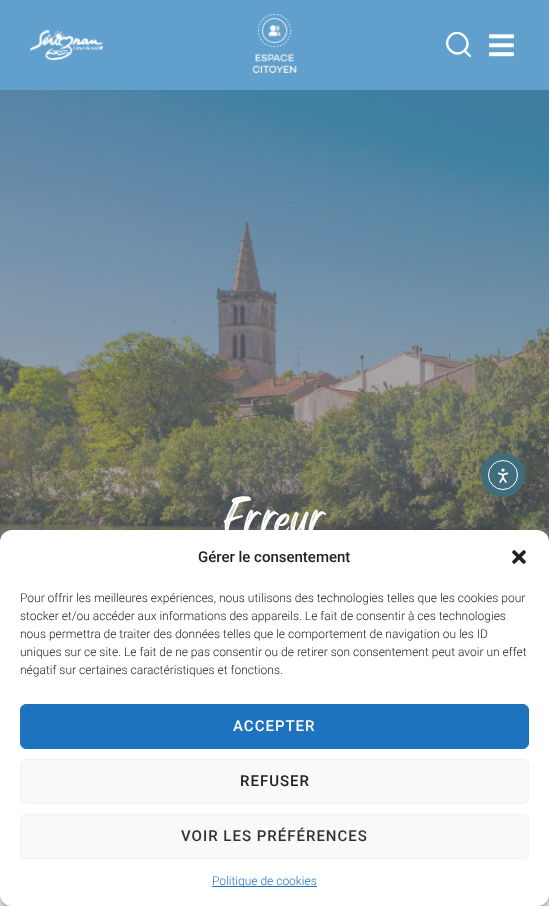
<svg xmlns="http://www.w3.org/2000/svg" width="549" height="906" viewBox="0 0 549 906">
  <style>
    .t1 { font: 900 48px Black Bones; fill: #fff; }
    .t2 { font: 500 15px Roboto; fill: #222; }
    .t3 { font: 300 12px Roboto; fill: #222; }
    .t4 { font: 500 15px Roboto; letter-spacing: 1px; fill: #fff; }
    .t5 { font: 500 15px Roboto; letter-spacing: 1px; fill: #222; }
    .t6 { font: 500 15px Roboto; letter-spacing: 1px; fill: #333; }
    .t7 { font: 300 12px Roboto; fill: #1e73be; }
  </style>
  <defs>
    <clipPath id="clip1"><rect x="446" y="32" width="25" height="25"/></clipPath>
  </defs>
  <rect width="100%" height="100%" fill="#fff"/>
  <image x="0" y="90" width="549" height="452" href="images/5.png"/>
  <circle cx="503" cy="475" r="22" fill="#3f6d7c"/>
  <circle cx="503" cy="475" r="14.5" fill="none" stroke="#fff"/>
  <image x="497" y="468" width="12" height="15" href="images/1.png"/>
  <rect x="0" y="0" width="549" height="90" fill="#619fcc"/>
  <image x="30" y="29" width="73" height="32" href="images/2.png"/>
  <image x="252" y="13" width="45" height="61" href="images/3.png"/>
  <g clip-path="url(#clip1)">
    <path d="M470 56L464.5 50.5M464.5 50.5C474 41 459 26.5 450 36C441 46 455 59.5 464.5 50.5Z" fill="none" stroke="#fff" stroke-width="2.4" stroke-linecap="round" stroke-linejoin="round"/>
  </g>
  <image x="489" y="34" width="25" height="23" href="images/4.png"/>
  <text x="224" y="535" class="t1">Erreur</text>
  <rect x="0" y="536" width="549" height="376" rx="12" fill="#0000003b" filter="blur(3px)"/>
  <rect x="0" y="540" width="549" height="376" rx="12" fill="#00000030" filter="blur(10px)"/>
  <rect x="0" y="530" width="549" height="376" rx="12" fill="#fff"/>
  <text x="198" y="562" class="t2">Gérer le consentement</text>
  <image x="512" y="550" width="14" height="14" href="images/6.png"/>
  <text x="20" y="602" class="t3">Pour offrir les meilleures expériences, nous utilisons des technologies telles que les cookies pour</text>
  <text x="20" y="620" class="t3">stocker et/ou accéder aux informations des appareils. Le fait de consentir à ces technologies</text>
  <text x="20" y="638" class="t3">nous permettra de traiter des données telles que le comportement de navigation ou les ID</text>
  <text x="20" y="656" class="t3">uniques sur ce site. Le fait de ne pas consentir ou de retirer son consentement peut avoir un effet</text>
  <text x="20" y="674" class="t3">négatif sur certaines caractéristiques et fonctions.</text>
  <rect x="20.5" y="704.5" width="508" height="44" rx="5.5" fill="#1e73be" stroke="#1e73be"/>
  <text x="233" y="731" class="t4">ACCEPTER</text>
  <rect x="20.5" y="759.5" width="508" height="44" rx="5.5" fill="#f9f9f9" stroke="#f2f2f2"/>
  <text x="240" y="786" class="t5">REFUSER</text>
  <rect x="20.5" y="814.5" width="508" height="44" rx="5.5" fill="#f9f9f9" stroke="#f2f2f2"/>
  <text x="181" y="841" class="t6">VOIR LES PRÉFÉRENCES</text>
  <rect x="212" y="886" width="105" height="1" fill="#1e73be"/>
  <text x="212" y="885" class="t7">Politique de cookies</text>
</svg>
